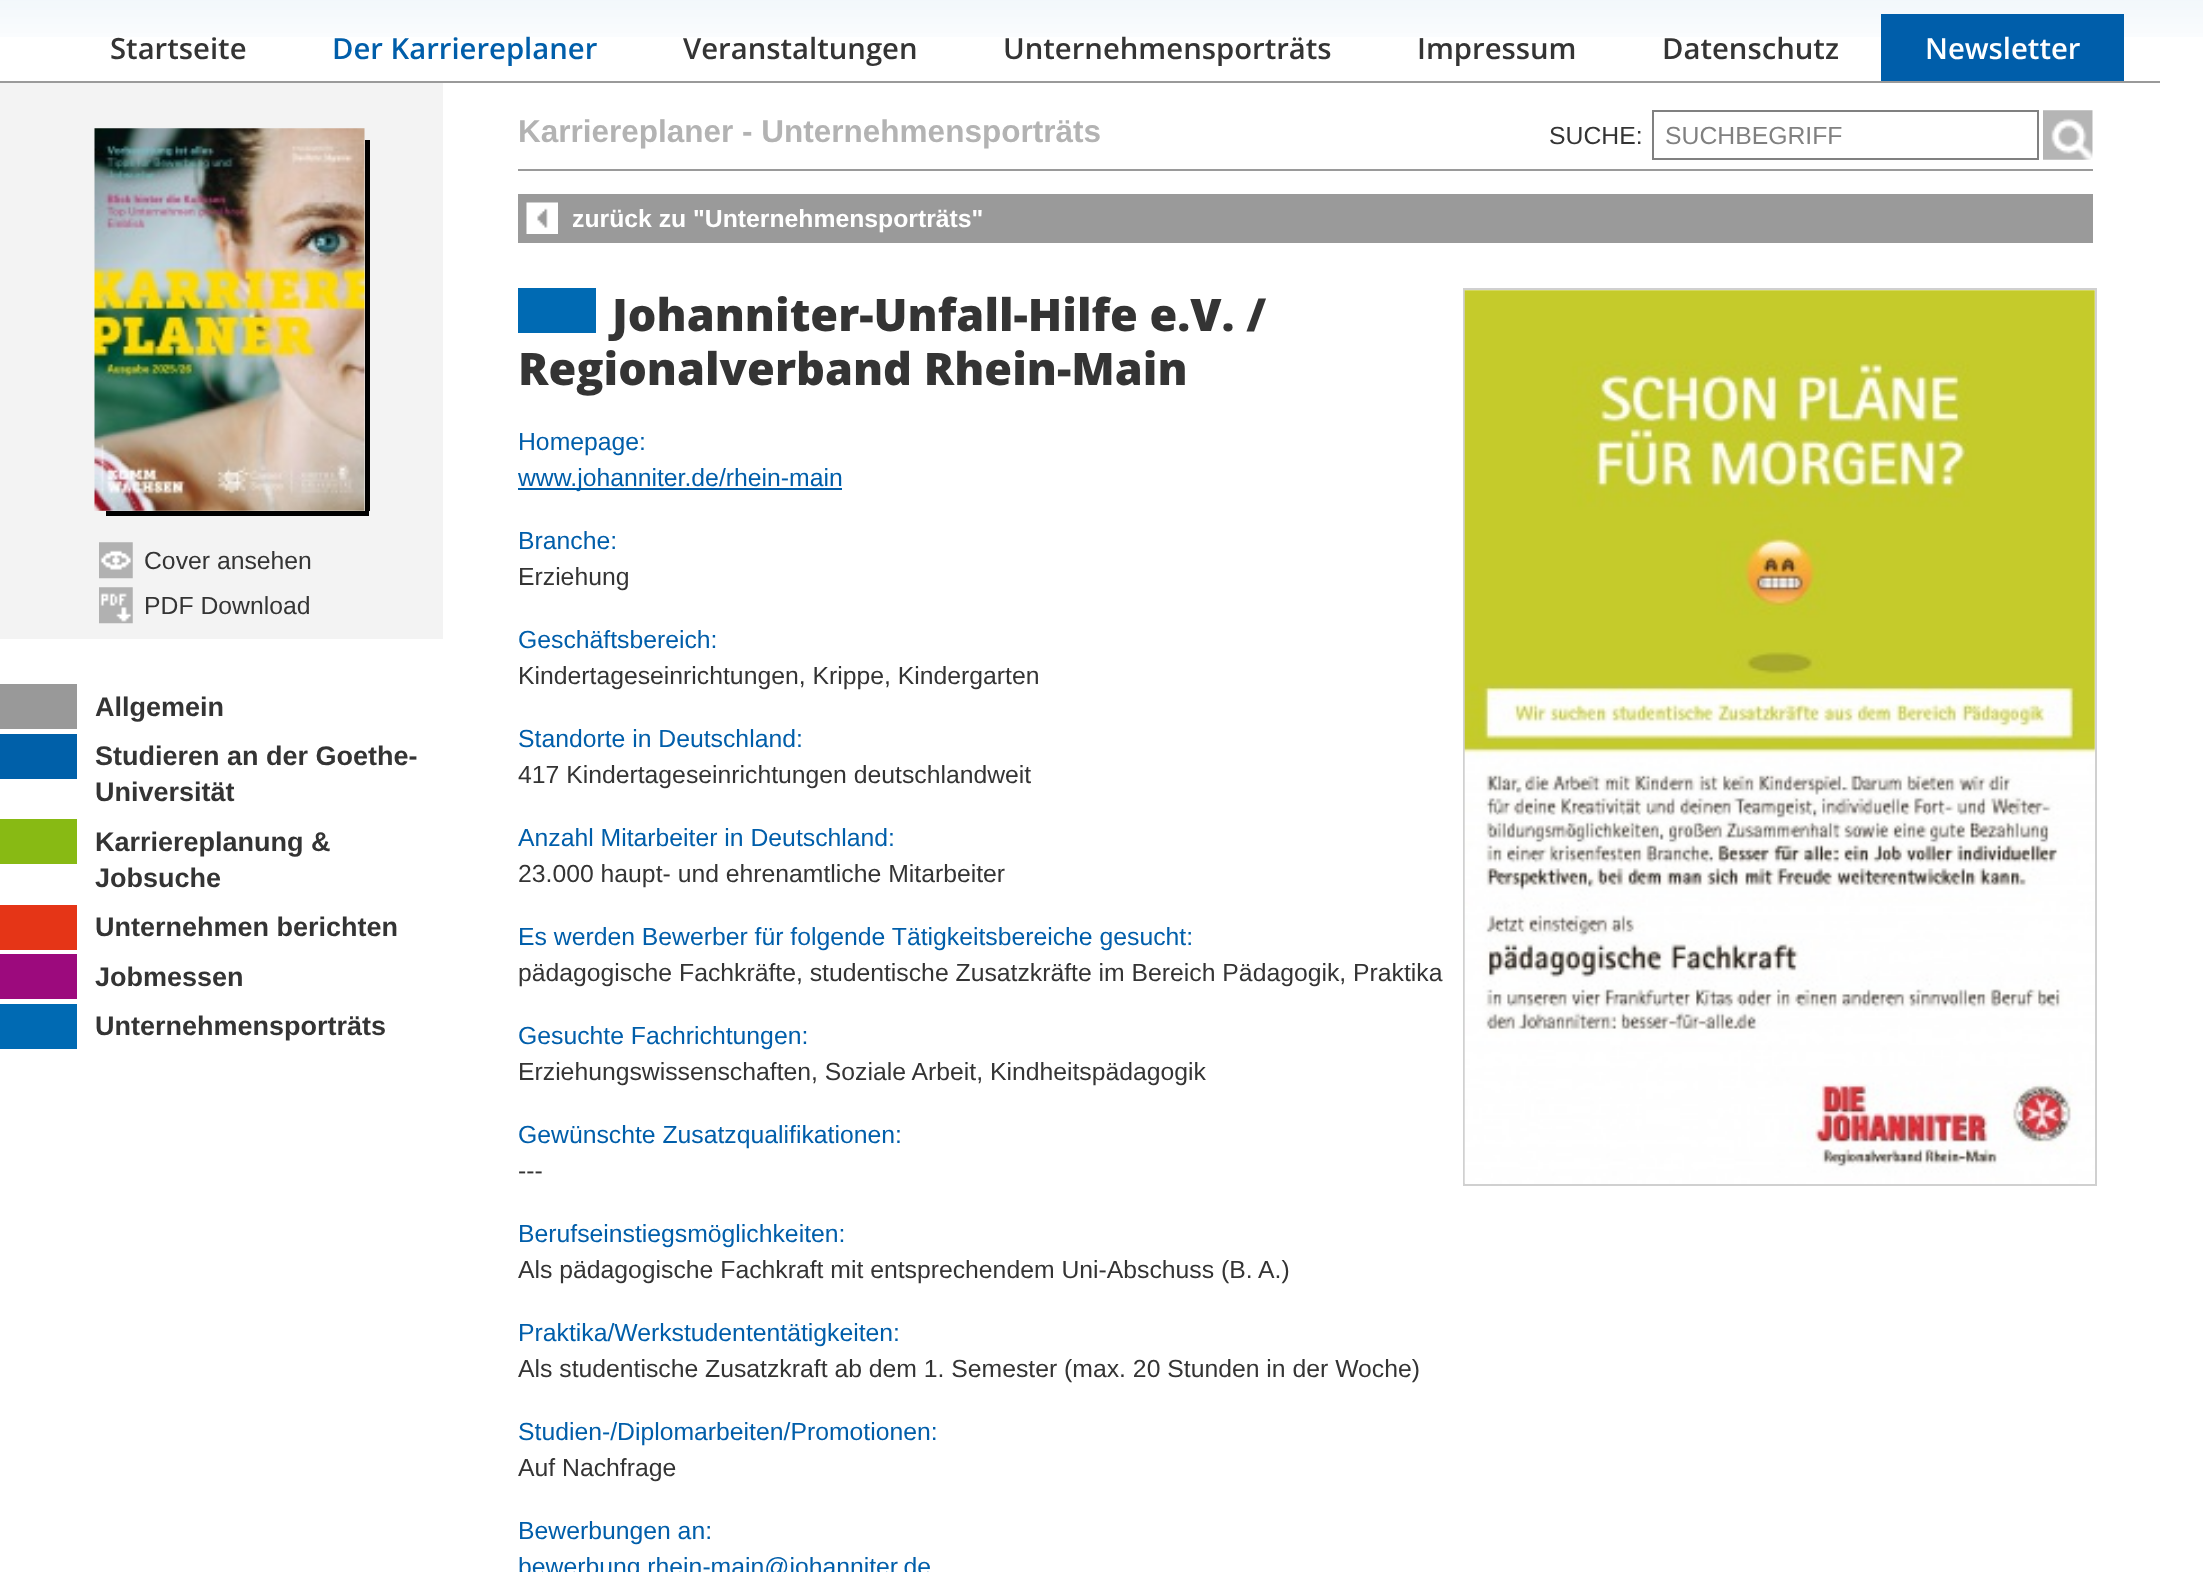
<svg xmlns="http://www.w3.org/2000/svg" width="2203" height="1572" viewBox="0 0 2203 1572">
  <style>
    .t1 { font: 600 29.25px Open Sans; fill: #343434; }
    .t2 { font: 600 29.25px Open Sans; fill: #005eaa; }
    .t3 { font: 600 29.25px Open Sans; fill: #fff; }
    .t4 { font: 24.75px Liberation Sans; fill: #343434; }
    .t5 { font: bold 27px Liberation Sans; fill: #343434; }
    .t6 { font: bold 31.5px Liberation Sans; fill: #b3b3b3; }
    .t7 { font: 24.75px Liberation Sans; fill: #808080; }
    .t8 { font: bold 24.75px Liberation Sans; fill: #fff; }
    .t9 { font: 800 45px Open Sans; fill: #343434; }
    .t10 { font: 24.75px Liberation Sans; fill: #005eaa; }
  </style>
  <rect width="100%" height="100%" fill="#fff"/>
  <image x="0" y="0" width="2203" height="37" href="images/1.png"/>
  <rect x="0" y="81" width="2160" height="2" fill="#9a9a9a"/>
  <text x="110" y="59" class="t1">Startseite</text>
  <text x="332" y="59" class="t2">Der Karriereplaner</text>
  <text x="683" y="59" class="t1">Veranstaltungen</text>
  <text x="1003" y="59" class="t1">Unternehmensporträts</text>
  <text x="1417" y="59" class="t1">Impressum</text>
  <text x="1662" y="59" class="t1">Datenschutz</text>
  <rect x="1881" y="14" width="243" height="67" fill="#005eaa"/>
  <text x="1925" y="59" class="t3">Newsletter</text>
  <rect x="0" y="83" width="443" height="556" fill="#f3f3f3"/>
  <image x="94" y="128" width="271" height="383" href="images/2.png"/>
  <rect x="365" y="140" width="5" height="371" fill="#000"/>
  <rect x="106" y="511" width="263" height="5" fill="#000"/>
  <image x="99" y="542" width="34" height="37" href="images/3.png"/>
  <text x="144" y="569" class="t4">Cover ansehen</text>
  <image x="99" y="587" width="34" height="37" href="images/4.png"/>
  <text x="144" y="614" class="t4">PDF Download</text>
  <rect x="0" y="684" width="77" height="45" fill="#999"/>
  <text x="95" y="716" class="t5">Allgemein</text>
  <rect x="0" y="734" width="77" height="45" fill="#0060a9"/>
  <text x="95" y="765" class="t5">Studieren an der Goethe-</text>
  <text x="95" y="801" class="t5">Universität</text>
  <rect x="0" y="819" width="77" height="45" fill="#88ba14"/>
  <text x="95" y="851" class="t5">Karriereplanung &amp;</text>
  <text x="95" y="887" class="t5">Jobsuche</text>
  <rect x="0" y="905" width="77" height="45" fill="#e53517"/>
  <text x="95" y="936" class="t5">Unternehmen berichten</text>
  <rect x="0" y="954" width="77" height="45" fill="#9c0a7d"/>
  <text x="95" y="986" class="t5">Jobmessen</text>
  <rect x="0" y="1004" width="77" height="45" fill="#006ab3"/>
  <text x="95" y="1035" class="t5">Unternehmensporträts</text>
  <text x="518" y="142" class="t6">Karriereplaner - Unternehmensporträts</text>
  <text x="1549" y="144" class="t4">SUCHE:</text>
  <rect x="1653" y="111" width="385" height="48" fill="none" stroke="#808080" stroke-width="2"/>
  <text x="1665" y="144" class="t7">SUCHBEGRIFF</text>
  <image x="2043" y="110" width="50" height="50" href="images/5.png"/>
  <rect x="518" y="169" width="1575" height="2" fill="#9a9a9a"/>
  <rect x="518" y="194" width="1575" height="49" fill="#9a9a9a"/>
  <image x="526" y="202" width="32" height="32" href="images/6.png"/>
  <text x="572" y="227" class="t8">zurück zu "Unternehmensporträts"</text>
  <rect x="518" y="288" width="78" height="45" fill="#006ab3"/>
  <text x="612" y="331" class="t9">Johanniter-Unfall-Hilfe e.V. /</text>
  <text x="518" y="385" class="t9">Regionalverband Rhein-Main</text>
  <rect x="1464" y="289" width="632" height="896" fill="none" stroke="#d0d0d0" stroke-width="2"/>
  <image x="1464" y="290" width="631" height="894" href="images/7.png"/>
  <text x="518" y="450" class="t10">Homepage:</text>
  <rect x="518" y="488" width="324" height="2" fill="#005eaa"/>
  <text x="518" y="486" class="t10">www.johanniter.de/rhein-main</text>
  <text x="518" y="549" class="t10">Branche:</text>
  <text x="518" y="585" class="t4">Erziehung</text>
  <text x="518" y="648" class="t10">Geschäftsbereich:</text>
  <text x="518" y="684" class="t4">Kindertageseinrichtungen, Krippe, Kindergarten</text>
  <text x="518" y="747" class="t10">Standorte in Deutschland:</text>
  <text x="518" y="783" class="t4">417 Kindertageseinrichtungen deutschlandweit</text>
  <text x="518" y="846" class="t10">Anzahl Mitarbeiter in Deutschland:</text>
  <text x="518" y="882" class="t4">23.000 haupt- und ehrenamtliche Mitarbeiter</text>
  <text x="518" y="945" class="t10">Es werden Bewerber für folgende Tätigkeitsbereiche gesucht:</text>
  <text x="518" y="981" class="t4">pädagogische Fachkräfte, studentische Zusatzkräfte im Bereich Pädagogik, Praktika</text>
  <text x="518" y="1044" class="t10">Gesuchte Fachrichtungen:</text>
  <text x="518" y="1080" class="t4">Erziehungswissenschaften, Soziale Arbeit, Kindheitspädagogik</text>
  <text x="518" y="1143" class="t10">Gewünschte Zusatzqualifikationen:</text>
  <text x="518" y="1179" class="t4">---</text>
  <text x="518" y="1242" class="t10">Berufseinstiegsmöglichkeiten:</text>
  <text x="518" y="1278" class="t4">Als pädagogische Fachkraft mit entsprechendem Uni-Abschuss (B. A.)</text>
  <text x="518" y="1341" class="t10">Praktika/Werkstudententätigkeiten:</text>
  <text x="518" y="1377" class="t4">Als studentische Zusatzkraft ab dem 1. Semester (max. 20 Stunden in der Woche)</text>
  <text x="518" y="1440" class="t10">Studien-/Diplomarbeiten/Promotionen:</text>
  <text x="518" y="1476" class="t4">Auf Nachfrage</text>
  <text x="518" y="1539" class="t10">Bewerbungen an:</text>
  <text x="518" y="1575" class="t10">bewerbung.rhein-main@johanniter.de</text>
</svg>
